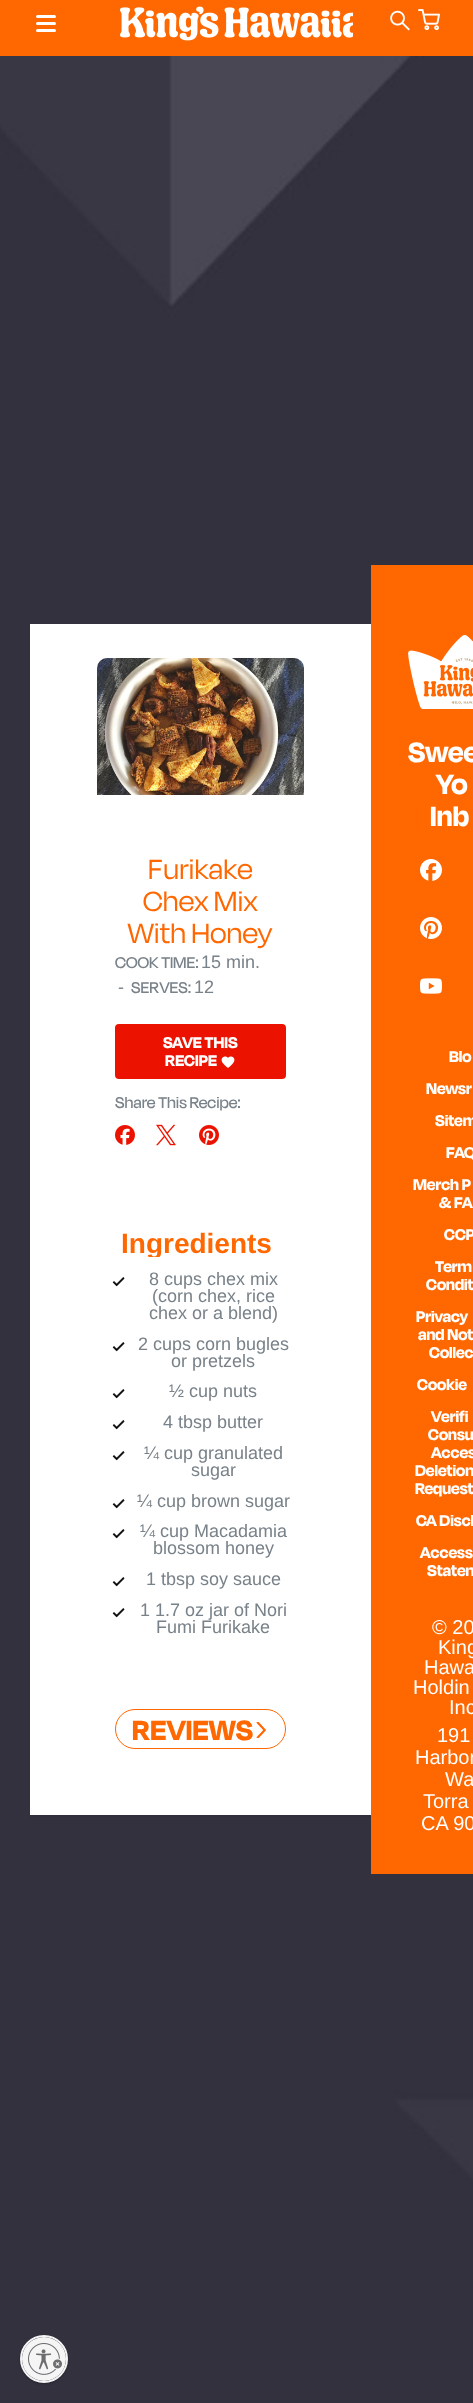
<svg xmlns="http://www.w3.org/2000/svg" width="473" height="2403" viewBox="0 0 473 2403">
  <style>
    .t1 { font: 32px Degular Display; letter-spacing: 0.25px; fill: #ff6700; }
    .t2 { font: 500 18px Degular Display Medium; fill: #798289; }
    .t3 { font: 18px Liberation Sans; fill: #798289; }
    .t4 { font: bold 18px Degular Display; fill: #fff; }
    .t5 { font: bold 28px Liberation Sans; fill: #ff6700; }
    .t6 { font: bold 32px Degular Display; letter-spacing: 0.25px; fill: #ff6700; }
    .t7 { font: bold 32px Degular Display; letter-spacing: 0.25px; fill: #fff; }
    .t8 { font: 20px Liberation Sans; fill: #fff; }
  </style>
  <defs>
    <clipPath id="clip1"><rect x="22" y="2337" width="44" height="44" rx="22"/></clipPath>
  </defs>
  <rect width="100%" height="100%" fill="#fff"/>
  <image x="0" y="56" width="473" height="2347" href="images/1.png"/>
  <rect x="0" y="0" width="473" height="56" fill="#ff6700"/>
  <rect x="36" y="22" width="20" height="3" rx="1.5" fill="#fff"/>
  <rect x="36" y="15" width="20" height="3" rx="1.5" fill="#fff"/>
  <rect x="36" y="29" width="20" height="3" rx="1.5" fill="#fff"/>
  <image x="120" y="6" width="233" height="35" href="images/2.png"/>
  <image x="390" y="10" width="20" height="21" href="images/3.png"/>
  <image x="418" y="9" width="22" height="22" href="images/4.png"/>
  <rect x="30" y="1815" width="341" height="2" fill="#2f2e3a"/>
  <rect x="30" y="624" width="341" height="1191" fill="#fff"/>
  <image x="97" y="658" width="207" height="137" href="images/5.png"/>
  <text x="148" y="879" class="t1">Furikake</text>
  <text x="143" y="911" class="t1">Chex Mix</text>
  <text x="128" y="943" class="t1">With Honey</text>
  <text x="115" y="968" class="t2">COOK TIME:</text>
  <text x="201" y="968" class="t3">15 min.</text>
  <text x="118" y="993" class="t3">-</text>
  <text x="131" y="993" class="t2">SERVES:</text>
  <text x="194" y="993" class="t3">12</text>
  <rect x="116" y="1025" width="169" height="53" rx="3" fill="#ec1200" stroke="#ec1200" stroke-width="2"/>
  <text x="163" y="1048" class="t4">SAVE THIS</text>
  <text x="165" y="1066" class="t4">RECIPE</text>
  <image x="221" y="1056" width="14" height="12" href="images/6.png"/>
  <text x="115" y="1108" class="t2">Share This Recipe:</text>
  <image x="115" y="1125" width="20" height="20" href="images/7.png"/>
  <image x="156" y="1124" width="20" height="22" href="images/8.png"/>
  <image x="199" y="1125" width="20" height="20" href="images/9.png"/>
  <text x="121" y="1253" class="t5">Ingredients</text>
  <path d="M97 1257H304V1653C304 1658.5 299.5 1663 294 1663H107C101.5 1663 97 1658.5 97 1653Z" fill="#fff"/>
  <image x="112" y="1277" width="13" height="10" href="images/10.png"/>
  <text x="149" y="1285" class="t3">8 cups chex mix</text>
  <text x="152" y="1302" class="t3">(corn chex, rice</text>
  <text x="149" y="1319" class="t3">chex or a blend)</text>
  <image x="112" y="1342" width="13" height="10" href="images/10.png"/>
  <text x="138" y="1350" class="t3">2 cups corn bugles</text>
  <text x="171" y="1367" class="t3">or pretzels</text>
  <image x="112" y="1389" width="13" height="10" href="images/10.png"/>
  <text x="169" y="1397" class="t3">½ cup nuts</text>
  <image x="112" y="1420" width="13" height="10" href="images/10.png"/>
  <text x="163" y="1428" class="t3">4 tbsp butter</text>
  <image x="112" y="1451" width="13" height="10" href="images/10.png"/>
  <text x="144" y="1459" class="t3">¼ cup granulated</text>
  <text x="191" y="1476" class="t3">sugar</text>
  <image x="112" y="1499" width="13" height="10" href="images/10.png"/>
  <text x="137" y="1507" class="t3">¼ cup brown sugar</text>
  <image x="112" y="1529" width="13" height="10" href="images/10.png"/>
  <text x="140" y="1537" class="t3">¼ cup Macadamia</text>
  <text x="153" y="1554" class="t3">blossom honey</text>
  <image x="112" y="1577" width="13" height="10" href="images/10.png"/>
  <text x="146" y="1585" class="t3">1 tbsp soy sauce</text>
  <image x="112" y="1608" width="13" height="10" href="images/10.png"/>
  <text x="140" y="1616" class="t3">1 1.7 oz jar of Nori</text>
  <text x="156" y="1633" class="t3">Fumi Furikake</text>
  <rect x="115.5" y="1709.5" width="170" height="39" rx="19.5" fill="none" stroke="#ff6700"/>
  <text x="132" y="1740" class="t6">REVIEWS</text>
  <image x="256" y="1722" width="11" height="16" href="images/11.png"/>
  <rect x="371" y="565" width="102" height="1309" fill="#ff6700"/>
  <image x="408" y="635" width="65" height="74" href="images/12.png"/>
  <text x="408" y="762" class="t7">Swee</text>
  <text x="436" y="794" class="t7">Yo</text>
  <text x="430" y="826" class="t7">Inb</text>
  <image x="420" y="859" width="22" height="22" href="images/13.png"/>
  <image x="420" y="917" width="22" height="22" href="images/14.png"/>
  <image x="420" y="978" width="22" height="16" href="images/15.png"/>
  <text x="449" y="1062" class="t4">Blo</text>
  <text x="426" y="1094" class="t4">Newsr</text>
  <text x="435" y="1126" class="t4">Sitem</text>
  <text x="446" y="1158" class="t4">FAQ</text>
  <text x="413" y="1190" class="t4">Merch P</text>
  <text x="439" y="1208" class="t4">&amp; FA</text>
  <text x="444" y="1240" class="t4">CCP</text>
  <text x="435" y="1272" class="t4">Term</text>
  <text x="426" y="1290" class="t4">Condit</text>
  <text x="416" y="1322" class="t4">Privacy</text>
  <text x="418" y="1340" class="t4">and Not</text>
  <text x="429" y="1358" class="t4">Collec</text>
  <text x="417" y="1390" class="t4">Cookie</text>
  <text x="431" y="1422" class="t4">Verifi</text>
  <text x="428" y="1440" class="t4">Consu</text>
  <text x="431" y="1458" class="t4">Acces</text>
  <text x="415" y="1476" class="t4">Deletion</text>
  <text x="415" y="1494" class="t4">Request</text>
  <text x="416" y="1526" class="t4">CA Discl</text>
  <text x="420" y="1558" class="t4">Access</text>
  <text x="427" y="1576" class="t4">Statem</text>
  <text x="432" y="1634" class="t8">© 20</text>
  <text x="438" y="1654" class="t8">King</text>
  <text x="424" y="1674" class="t8">Hawa</text>
  <text x="413" y="1694" class="t8">Holdin</text>
  <text x="449" y="1714" class="t8">Inc</text>
  <text x="437" y="1742" class="t8">191</text>
  <text x="415" y="1764" class="t8">Harbor</text>
  <text x="445" y="1786" class="t8">Wa</text>
  <text x="423" y="1808" class="t8">Torra</text>
  <text x="421" y="1830" class="t8">CA 90</text>
  <rect x="20" y="2336" width="48" height="48" rx="24" fill="#0000003d" filter="blur(1px)"/>
  <circle cx="44" cy="2359" r="23" fill="none" stroke="#f5f5f5" stroke-width="2"/>
  <g clip-path="url(#clip1)">
    <rect x="22" y="2338" width="44" height="44" rx="22" fill="#0000003d" filter="blur(1px)"/>
  </g>
  <circle cx="44" cy="2359" r="22" fill="#f5f5f5"/>
  <image x="28" y="2343" width="34" height="32" href="images/16.png"/>
</svg>
